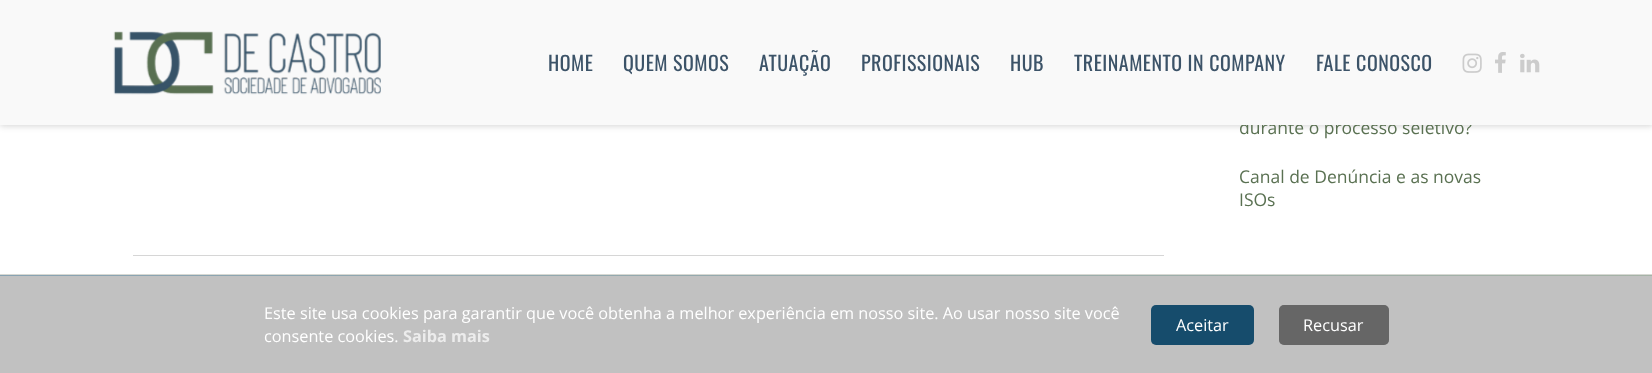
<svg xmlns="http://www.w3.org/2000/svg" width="1652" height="373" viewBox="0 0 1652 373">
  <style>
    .t1 { font: 17.5px Open Sans; fill: #5a7152; }
    .t2 { font: 20px Oswald; letter-spacing: 0.5px; fill: #3c5368; }
    .t3 { font: 16.25px Open Sans; fill: #fff; }
    .t4 { font: bold 16.25px Open Sans; fill: #ececec; }
  </style>
  <defs>
    <linearGradient id="g1" gradientUnits="userSpaceOnUse" x1="347" y1="-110" x2="1305" y2="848"><stop offset="0" stop-color="#87a2b2"/><stop offset="1" stop-color="#a9b5a5"/></linearGradient>
  </defs>
  <rect width="100%" height="100%" fill="#fff"/>
  <rect x="0" y="1" width="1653" height="125" fill="#0000002b" filter="blur(3px)"/>
  <text x="1239" y="134" class="t1">durante o processo seletivo?</text>
  <rect x="0" y="0" width="1652" height="125" fill="#f9f9f9"/>
  <image x="113" y="31" width="268" height="64" href="images/1.png"/>
  <text x="548" y="71" class="t2">HOME</text>
  <text x="623" y="71" class="t2">QUEM SOMOS</text>
  <text x="759" y="71" class="t2">ATUAÇÃO</text>
  <text x="861" y="71" class="t2">PROFISSIONAIS</text>
  <text x="1010" y="71" class="t2">HUB</text>
  <text x="1074" y="71" class="t2">TREINAMENTO IN COMPANY</text>
  <text x="1316" y="71" class="t2">FALE CONOSCO</text>
  <image x="1462" y="53" width="20" height="20" href="images/2.png"/>
  <image x="1495" y="52" width="11" height="21" href="images/3.png"/>
  <image x="1520" y="53" width="20" height="20" href="images/4.png"/>
  <text x="1239" y="183" class="t1">Canal de Denúncia e as novas</text>
  <text x="1239" y="206" class="t1">ISOs</text>
  <rect x="133" y="255" width="1031" height="1" fill="#d6d6d6"/>
  <rect x="0" y="274" width="1652" height="1" fill="#d7d8d3"/>
  <rect x="0" y="275" width="1652" height="1" fill="url(#g1)"/>
  <rect x="0" y="276" width="1652" height="97" fill="#c1c1c1"/>
  <text x="264" y="319" class="t3">Este site usa cookies para garantir que você obtenha a melhor experiência em nosso site. Ao usar nosso site você</text>
  <text x="264" y="342" class="t3">consente cookies.</text>
  <text x="403" y="342" class="t4">Saiba mais</text>
  <rect x="1151" y="305" width="103" height="40" rx="5" fill="#164c6c"/>
  <text x="1176" y="331" class="t3">Aceitar</text>
  <rect x="1279" y="305" width="110" height="40" rx="5" fill="#666"/>
  <rect x="1279.5" y="305.5" width="109" height="39" rx="4.5" fill="none" stroke="#6666664d"/>
  <text x="1303" y="331" class="t3">Recusar</text>
</svg>
